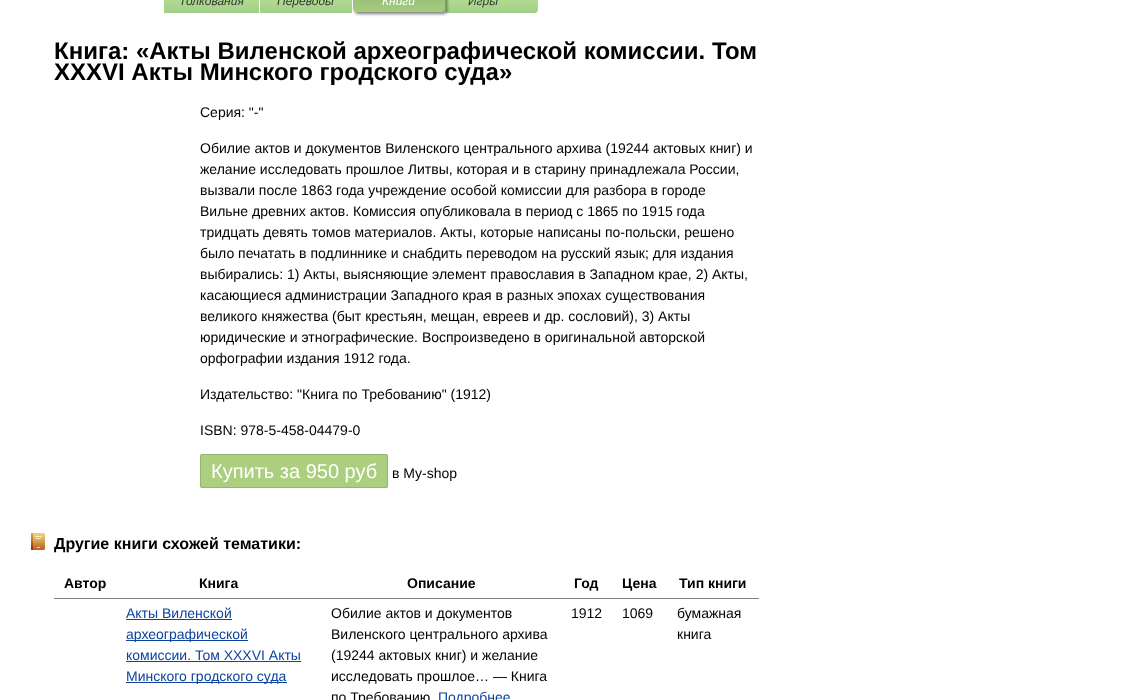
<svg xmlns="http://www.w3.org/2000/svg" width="1128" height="700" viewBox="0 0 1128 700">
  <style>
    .t1 { font: italic 12px Liberation Sans; fill: #353535; }
    .t2 { font: italic 12px Liberation Sans; fill: #fff; }
    .t3 { font: bold 24px Liberation Sans; fill: #000; }
    .t4 { font: 14px Liberation Sans; fill: #000; }
    .t5 { font: 20px Liberation Sans; fill: #fff; }
    .t6 { font: bold 16px Liberation Sans; fill: #000; }
    .t7 { font: bold 14px Liberation Sans; fill: #000; }
    .t8 { font: 14px Liberation Sans; fill: #0d44a0; }
  </style>
  <defs>
    <linearGradient id="g1" gradientUnits="userSpaceOnUse" x1="212" y1="-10" x2="212" y2="13"><stop offset="0" stop-color="#bde693"/><stop offset="1" stop-color="#a0ce8a"/></linearGradient>
    <linearGradient id="g2" gradientUnits="userSpaceOnUse" x1="306" y1="-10" x2="306" y2="13"><stop offset="0" stop-color="#bde693"/><stop offset="1" stop-color="#a0ce8a"/></linearGradient>
    <linearGradient id="g3" gradientUnits="userSpaceOnUse" x1="492" y1="-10" x2="492" y2="13"><stop offset="0" stop-color="#bde693"/><stop offset="1" stop-color="#a0ce8a"/></linearGradient>
    <linearGradient id="g4" gradientUnits="userSpaceOnUse" x1="399" y1="-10" x2="399" y2="12"><stop offset="0" stop-color="#8fb875"/><stop offset="1" stop-color="#a7cc7d"/></linearGradient>
  </defs>
  <rect width="100%" height="100%" fill="#fff"/>
  <rect x="164" y="0" width="95" height="13" fill="url(#g1)"/>
  <text x="179" y="5" class="t1">Толкования</text>
  <rect x="260" y="0" width="92" height="13" fill="url(#g2)"/>
  <text x="277" y="5" class="t1">Переводы</text>
  <path d="M446-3H538V10C538 11.5 536.5 13 535 13H446Z" fill="url(#g3)"/>
  <rect x="355" y="-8" width="92" height="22" rx="3" fill="#00000080" filter="blur(1.5px)"/>
  <path d="M353-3H445V9C445 10.5 443.5 12 442 12H356C354.5 12 353 10.5 353 9Z" fill="url(#g4)"/>
  <text x="382" y="5" class="t2">Книги</text>
  <text x="468" y="5" class="t1">Игры</text>
  <text x="54" y="59" class="t3">Книга: «Акты Виленской археографической комиссии. Том</text>
  <text x="54" y="80" class="t3">XXXVI Акты Минского гродского суда»</text>
  <text x="200" y="117" class="t4">Серия: "-"</text>
  <text x="200" y="153" class="t4">Обилие актов и документов Виленского центрального архива (19244 актовых книг) и</text>
  <text x="200" y="174" class="t4">желание исследовать прошлое Литвы, которая и в старину принадлежала России,</text>
  <text x="200" y="195" class="t4">вызвали после 1863 года учреждение особой комиссии для разбора в городе</text>
  <text x="200" y="216" class="t4">Вильне древних актов. Комиссия опубликовала в период с 1865 по 1915 года</text>
  <text x="200" y="237" class="t4">тридцать девять томов материалов. Акты, которые написаны по-польски, решено</text>
  <text x="200" y="258" class="t4">было печатать в подлиннике и снабдить переводом на русский язык; для издания</text>
  <text x="200" y="279" class="t4">выбирались: 1) Акты, выясняющие элемент православия в Западном крае, 2) Акты,</text>
  <text x="200" y="300" class="t4">касающиеся администрации Западного края в разных эпохах существования</text>
  <text x="200" y="321" class="t4">великого княжества (быт крестьян, мещан, евреев и др. сословий), 3) Акты</text>
  <text x="200" y="342" class="t4">юридические и этнографические. Воспроизведено в оригинальной авторской</text>
  <text x="200" y="363" class="t4">орфографии издания 1912 года.</text>
  <text x="200" y="399" class="t4">Издательство: "Книга по Требованию" (1912)</text>
  <text x="200" y="435" class="t4">ISBN: 978-5-458-04479-0</text>
  <path d="M202 454H305V488H202C201 488 200 487 200 486V456C200 455 201 454 202 454Z" fill="#abcf7e"/>
  <rect x="305" y="455" width="34" height="32" fill="#abcf7e"/>
  <rect x="339" y="454" width="5" height="34" fill="#abcf7e"/>
  <path d="M344 454H386C387 454 388 455 388 456V486C388 487 387 488 386 488H344Z" fill="#abcf7e"/>
  <text x="211" y="478" class="t5">Купить за 950 руб</text>
  <rect x="201" y="454" width="138" height="1" fill="#8eb874"/>
  <rect x="201" y="487" width="138" height="1" fill="#8eb874"/>
  <rect x="200" y="455" width="1" height="32" fill="#8eb874"/>
  <rect x="339" y="454" width="5" height="1" fill="#8eb874"/>
  <rect x="339" y="487" width="5" height="1" fill="#8eb874"/>
  <rect x="344" y="454" width="43" height="1" fill="#8eb874"/>
  <rect x="387" y="455" width="1" height="32" fill="#8eb874"/>
  <rect x="344" y="487" width="43" height="1" fill="#8eb874"/>
  <text x="392" y="478" class="t4">в My-shop</text>
  <image x="31" y="533" width="14" height="17" href="images/1.png"/>
  <text x="54" y="549" class="t6">Другие книги схожей тематики:</text>
  <rect x="54" y="598" width="705" height="1" fill="#808080"/>
  <text x="64" y="588" class="t7">Автор</text>
  <text x="199" y="588" class="t7">Книга</text>
  <text x="407" y="588" class="t7">Описание</text>
  <text x="574" y="588" class="t7">Год</text>
  <text x="622" y="588" class="t7">Цена</text>
  <text x="679" y="588" class="t7">Тип книги</text>
  <text x="126" y="618" class="t8">Акты Виленской</text>
  <rect x="126" y="619" width="106" height="1" fill="#0d44a0"/>
  <rect x="126" y="640" width="122" height="1" fill="#0d44a0"/>
  <text x="126" y="639" class="t8">археографической</text>
  <text x="126" y="660" class="t8">комиссии. Том XXXVI Акты</text>
  <rect x="126" y="661" width="175" height="1" fill="#0d44a0"/>
  <rect x="126" y="682" width="161" height="1" fill="#0d44a0"/>
  <text x="126" y="681" class="t8">Минского гродского суда</text>
  <text x="331" y="618" class="t4">Обилие актов и документов</text>
  <text x="331" y="639" class="t4">Виленского центрального архива</text>
  <text x="331" y="660" class="t4">(19244 актовых книг) и желание</text>
  <text x="331" y="681" class="t4">исследовать прошлое… — Книга</text>
  <text x="331" y="702" class="t4">по Требованию</text>
  <text x="438" y="702" class="t8">Подробнее</text>
  <text x="571" y="618" class="t4">1912</text>
  <text x="622" y="618" class="t4">1069</text>
  <text x="677" y="618" class="t4">бумажная</text>
  <text x="677" y="639" class="t4">книга</text>
</svg>
